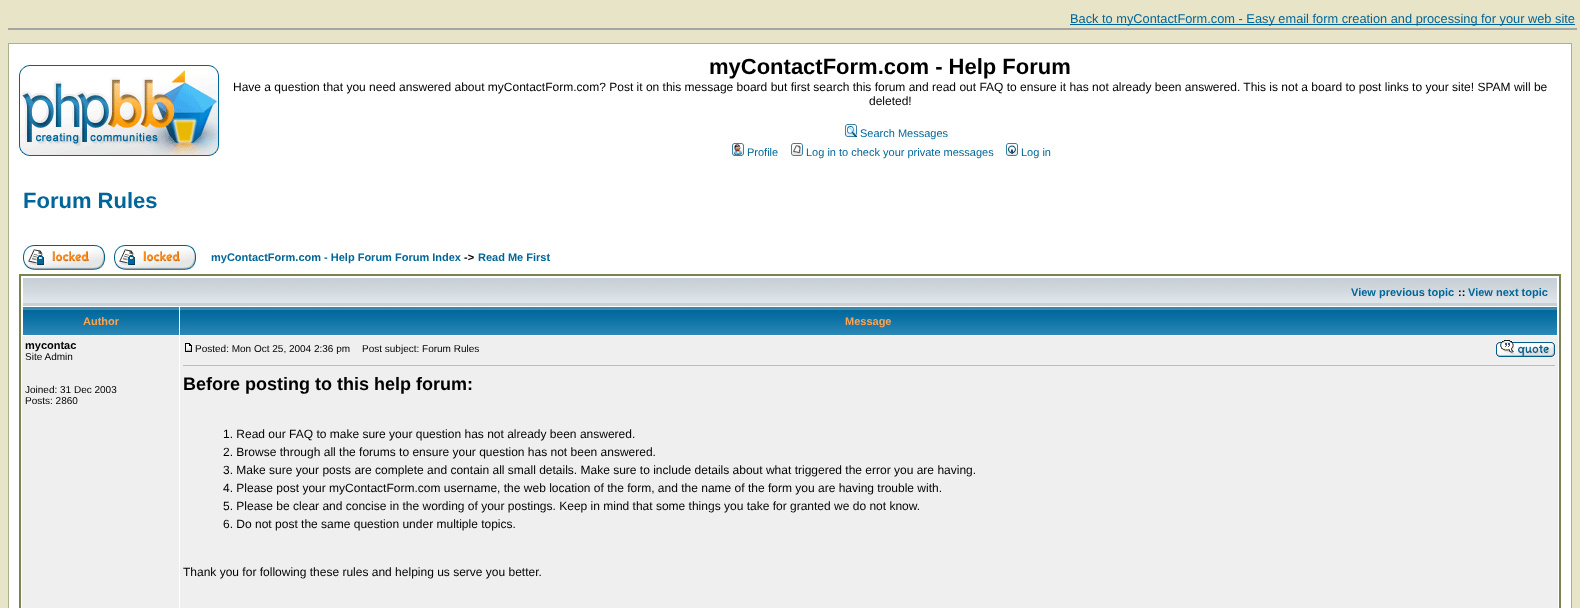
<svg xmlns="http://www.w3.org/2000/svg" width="1580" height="608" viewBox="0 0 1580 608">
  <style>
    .t1 { font: 12.8px Liberation Sans; fill: #069; }
    .t2 { font: bold 22px Liberation Sans; fill: #000; }
    .t3 { font: 12px Liberation Sans; fill: #000; }
    .t4 { font: 11px Liberation Sans; fill: #069; }
    .t5 { font: bold 22px Liberation Sans; fill: #069; }
    .t6 { font: bold 11px Liberation Sans; fill: #069; }
    .t7 { font: bold 11px Liberation Sans; fill: #000; }
    .t8 { font: bold 11px Liberation Sans; fill: #ffa34f; }
    .t9 { font: 10px Liberation Sans; fill: #000; }
    .t10 { font: bold 18px Liberation Sans; fill: #000; }
  </style>
  <rect width="100%" height="100%" fill="#e7e4c8"/>
  <rect x="8" y="28" width="1569" height="2" fill="#a5a5a5"/>
  <rect x="1070" y="24" width="505" height="1" fill="#069"/>
  <text x="1070" y="23" class="t1">Back to myContactForm.com - Easy email form creation and processing for your web site</text>
  <rect x="8.5" y="43.5" width="1563" height="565" fill="#fff" stroke="#aab191"/>
  <image x="19" y="65" width="200" height="91" href="images/1.png"/>
  <text x="709" y="74" class="t2">myContactForm.com - Help Forum</text>
  <text x="233" y="91" class="t3">Have a question that you need answered about myContactForm.com? Post it on this message board but first search this forum and read out FAQ to ensure it has not already been answered. This is not a board to post links to your site! SPAM will be</text>
  <text x="869" y="105" class="t3">deleted!</text>
  <image x="845" y="124" width="12" height="13" href="images/2.png"/>
  <text x="860" y="137" class="t4">Search Messages</text>
  <image x="732" y="143" width="12" height="13" href="images/3.png"/>
  <text x="747" y="156" class="t4">Profile</text>
  <image x="791" y="143" width="12" height="13" href="images/4.png"/>
  <text x="806" y="156" class="t4">Log in to check your private messages</text>
  <image x="1006" y="143" width="12" height="13" href="images/5.png"/>
  <text x="1021" y="156" class="t4">Log in</text>
  <text x="23" y="208" class="t5">Forum Rules</text>
  <image x="23" y="245" width="82" height="25" href="images/6.png"/>
  <image x="114" y="245" width="82" height="25" href="images/6.png"/>
  <text x="211" y="261" class="t6">myContactForm.com - Help Forum Forum Index</text>
  <text x="464" y="261" class="t7">-&gt;</text>
  <text x="478" y="261" class="t6">Read Me First</text>
  <rect x="20" y="275" width="1540" height="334" fill="none" stroke="#798452" stroke-width="2"/>
  <image x="23" y="278" width="1534" height="28" href="images/7.png"/>
  <text x="1351" y="296" class="t6">View previous topic</text>
  <text x="1458" y="296" class="t7">::</text>
  <text x="1468" y="296" class="t6">View next topic</text>
  <image x="23" y="307" width="156" height="28" href="images/8.png"/>
  <text x="83" y="325" class="t8">Author</text>
  <image x="180" y="307" width="1377" height="28" href="images/9.png"/>
  <text x="845" y="325" class="t8">Message</text>
  <rect x="22" y="336" width="157" height="272" fill="#efefef"/>
  <text x="25" y="349" class="t7">mycontac</text>
  <text x="25" y="360" class="t9">Site Admin</text>
  <text x="25" y="393" class="t9">Joined: 31 Dec 2003</text>
  <text x="25" y="404" class="t9">Posts: 2860</text>
  <rect x="180" y="336" width="1378" height="272" fill="#efefef"/>
  <image x="185" y="343" width="7" height="9" href="images/10.png"/>
  <text x="195" y="352" class="t9">Posted: Mon Oct 25, 2004 2:36 pm</text>
  <text x="362" y="352" class="t9">Post subject: Forum Rules</text>
  <image x="1496" y="340" width="59" height="17" href="images/11.png"/>
  <rect x="183" y="365" width="1372" height="1" fill="#bbbfad"/>
  <text x="183" y="390" class="t10">Before posting to this help forum:</text>
  <text x="223" y="438" class="t3">1. Read our FAQ to make sure your question has not already been answered.</text>
  <text x="223" y="456" class="t3">2. Browse through all the forums to ensure your question has not been answered.</text>
  <text x="223" y="474" class="t3">3. Make sure your posts are complete and contain all small details. Make sure to include details about what triggered the error you are having.</text>
  <text x="223" y="492" class="t3">4. Please post your myContactForm.com username, the web location of the form, and the name of the form you are having trouble with.</text>
  <text x="223" y="510" class="t3">5. Please be clear and concise in the wording of your postings. Keep in mind that some things you take for granted we do not know.</text>
  <text x="223" y="528" class="t3">6. Do not post the same question under multiple topics.</text>
  <text x="183" y="576" class="t3">Thank you for following these rules and helping us serve you better.</text>
</svg>
